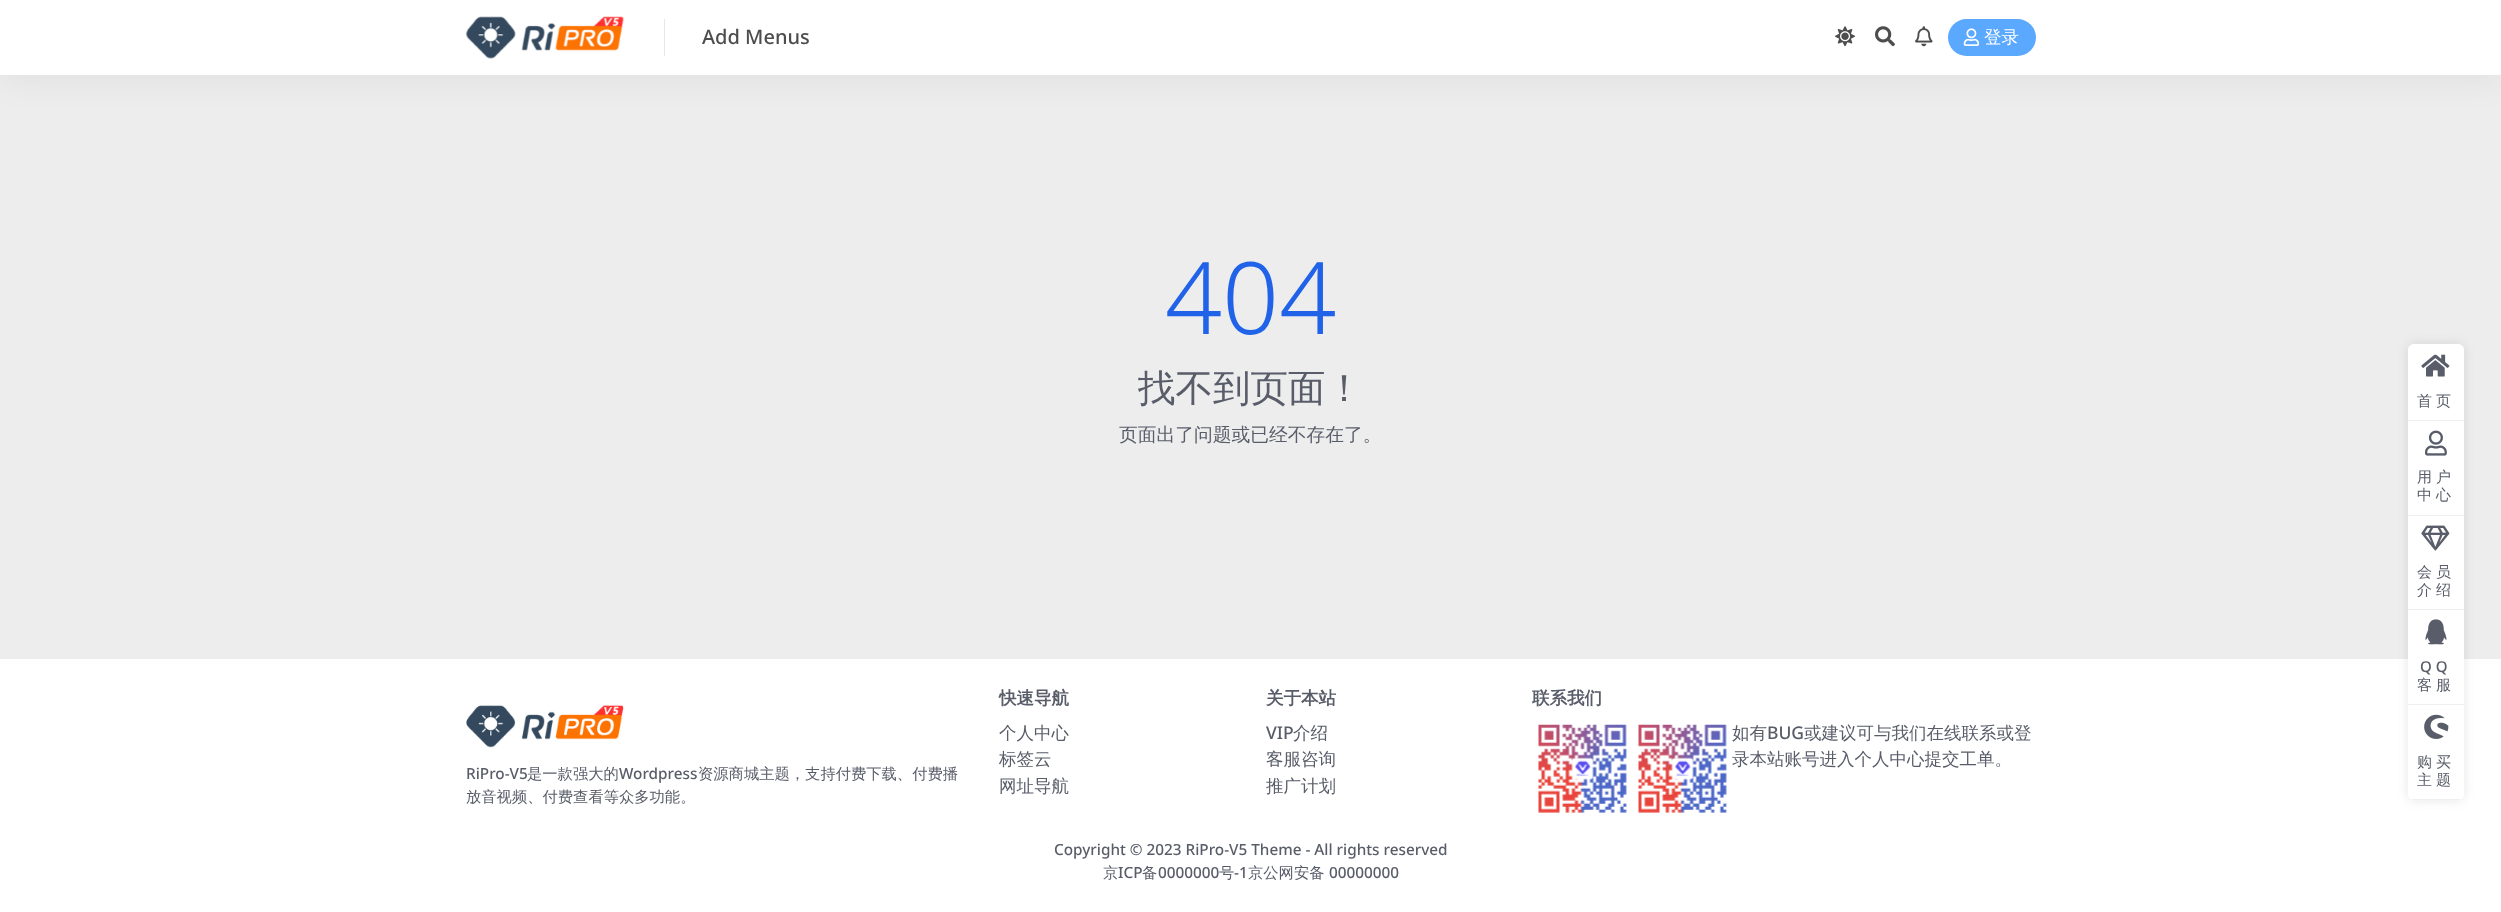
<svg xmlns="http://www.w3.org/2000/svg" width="2501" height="912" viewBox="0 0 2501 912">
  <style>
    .t1 { font: 500 20px Noto Sans; fill: #4d4d4d; }
    .t2 { font: 500 17.5px WenQuanYi Zen Hei; fill: #fff; }
    .t3 { font: 300 100px Noto Sans; fill: #2163e8; }
    .t4 { font: 500 37.5px WenQuanYi Zen Hei; fill: #595d69; }
    .t5 { font: 500 18.75px WenQuanYi Zen Hei; fill: #595d69; }
    .t6 { font: bold 17.5px WenQuanYi Zen Hei; fill: #595d69; }
    .t7 { font: 500 17.5px WenQuanYi Zen Hei; fill: #595d69; }
    .t8 { font: 500 17.5px Noto Sans; fill: #595d69; }
    .t9 { font: 500 15.3px Noto Sans; fill: #595d69; }
    .t10 { font: 500 15.3px WenQuanYi Zen Hei; fill: #595d69; }
    .t11 { font: 500 15px WenQuanYi Zen Hei; letter-spacing: 4px; fill: #595d69; }
    .t12 { font: 500 15px Noto Sans; letter-spacing: 4px; fill: #595d69; }
  </style>
  <defs>
    <clipPath id="clip1"><rect x="2408" y="344" width="56" height="456" rx="6"/></clipPath>
  </defs>
  <rect width="100%" height="100%" fill="#ededed"/>
  <rect x="0" y="0" width="2501" height="75" fill="#00000012" filter="blur(19px)"/>
  <rect x="0" y="0" width="2501" height="75" fill="#fff"/>
  <image x="465" y="16" width="159" height="43" href="images/1.png"/>
  <rect x="664" y="19" width="1" height="37" fill="#e8e8e9"/>
  <text x="702" y="44" class="t1">Add Menus</text>
  <image x="1835" y="26" width="20" height="21" href="images/2.png"/>
  <image x="1875" y="26" width="20" height="21" href="images/3.png"/>
  <image x="1915" y="26" width="18" height="21" href="images/4.png"/>
  <rect x="1948" y="19" width="88" height="37" rx="18.5" fill="#5ba8ff"/>
  <image x="1963" y="28" width="17" height="18" href="images/5.png"/>
  <text x="1984" y="43" class="t2">登录</text>
  <text x="1165" y="334" class="t3">404</text>
  <text x="1138" y="401" class="t4">找不到页面！</text>
  <text x="1119" y="441" class="t5">页面出了问题或已经不存在了。</text>
  <rect x="0" y="659" width="2501" height="253" fill="#fff"/>
  <text x="999" y="704" class="t6">快速导航</text>
  <text x="999" y="739" class="t7">个人中心</text>
  <text x="999" y="765" class="t7">标签云</text>
  <text x="999" y="792" class="t7">网址导航</text>
  <text x="1266" y="704" class="t6">关于本站</text>
  <text x="1266" y="739" class="t8">VIP</text>
  <text x="1293" y="739" class="t7">介绍</text>
  <text x="1266" y="765" class="t7">客服咨询</text>
  <text x="1266" y="792" class="t7">推广计划</text>
  <text x="1532" y="704" class="t6">联系我们</text>
  <image x="1538" y="724" width="89" height="89" href="images/6.png"/>
  <image x="1638" y="724" width="89" height="89" href="images/6.png"/>
  <text x="1732" y="739" class="t7">如有</text>
  <text x="1767" y="739" class="t8">BUG</text>
  <text x="1804" y="739" class="t7">或建议可与我们在线联系或登</text>
  <text x="1732" y="765" class="t7">录本站账号进入个人中心提交工单。</text>
  <image x="466" y="705" width="158" height="43" href="images/7.png"/>
  <text x="466" y="779" class="t9">RiPro-V5</text>
  <text x="527" y="779" class="t10">是一款强大的</text>
  <text x="619" y="779" class="t9">Wordpress</text>
  <text x="698" y="779" class="t10">资源商城主题，支持付费下载、付费播</text>
  <text x="466" y="802" class="t10">放音视频、付费查看等众多功能。</text>
  <text x="1054" y="855" class="t9">Copyright © 2023 RiPro-V5 Theme - All rights reserved</text>
  <text x="1103" y="878" class="t10">京</text>
  <text x="1118" y="878" class="t9">ICP</text>
  <text x="1142" y="878" class="t10">备</text>
  <text x="1158" y="878" class="t9">0000000</text>
  <text x="1219" y="878" class="t10">号</text>
  <text x="1234" y="878" class="t9">-1</text>
  <text x="1248" y="878" class="t10">京公网安备</text>
  <text x="1329" y="878" class="t9">00000000</text>
  <rect x="2408" y="344" width="56" height="456" rx="6" fill="#0000001a" filter="blur(6px)"/>
  <path d="M2414 344H2458C2461.5 344 2464 346.5 2464 350V421H2408V350C2408 346.5 2410.5 344 2414 344Z" fill="#fff"/>
  <rect x="2408" y="420" width="56" height="1" fill="#eee"/>
  <image x="2421" y="354" width="29" height="23" href="images/8.png"/>
  <text x="2417" y="406" class="t11">首页</text>
  <rect x="2408" y="421" width="56" height="94" fill="#fff"/>
  <rect x="2408" y="515" width="56" height="1" fill="#eee"/>
  <image x="2425" y="430" width="22" height="26" href="images/9.png"/>
  <text x="2417" y="482" class="t11">用户</text>
  <text x="2417" y="500" class="t11">中心</text>
  <rect x="2408" y="516" width="56" height="93" fill="#fff"/>
  <rect x="2408" y="609" width="56" height="1" fill="#eee"/>
  <image x="2421" y="525" width="29" height="26" href="images/10.png"/>
  <text x="2417" y="577" class="t11">会员</text>
  <text x="2417" y="595" class="t11">介绍</text>
  <rect x="2408" y="610" width="56" height="94" fill="#fff"/>
  <rect x="2408" y="704" width="56" height="1" fill="#eee"/>
  <image x="2425" y="619" width="22" height="26" href="images/11.png"/>
  <text x="2420" y="672" class="t12">QQ</text>
  <text x="2417" y="690" class="t11">客服</text>
  <path d="M2408 705H2464V794C2464 797.5 2461.5 800 2458 800H2414C2410.5 800 2408 797.5 2408 794Z" fill="#fff"/>
  <g clip-path="url(#clip1)">
    <rect x="2408" y="799" width="56" height="1" fill="#eee"/>
  </g>
  <image x="2424" y="714" width="25" height="25" href="images/12.png"/>
  <text x="2417" y="767" class="t11">购买</text>
  <text x="2417" y="785" class="t11">主题</text>
</svg>
